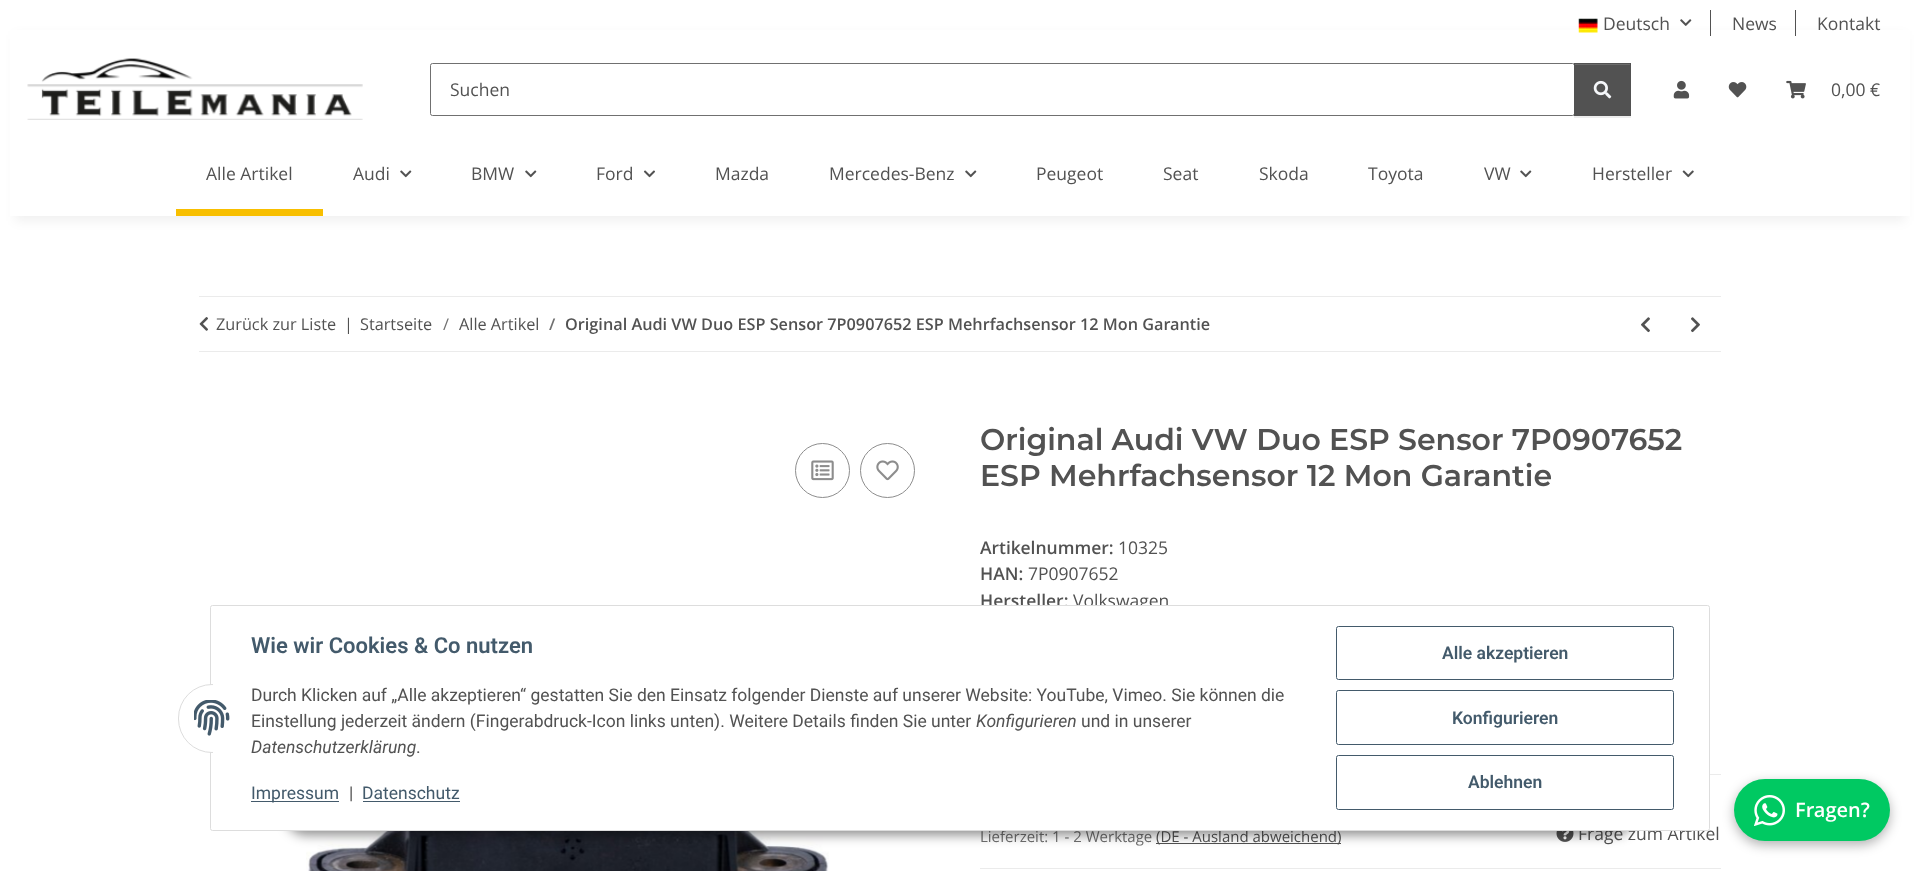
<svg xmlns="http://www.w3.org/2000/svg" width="1920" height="871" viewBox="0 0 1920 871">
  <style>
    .t1 { font: 17.5px Open Sans; fill: #525252; }
    .t2 { font: 16.25px Open Sans; fill: #525252; }
    .t3 { font: 16.25px Open Sans; fill: #707070; }
    .t4 { font: 600 16.25px Open Sans; fill: #707070; }
    .t5 { font: 600 16.25px Open Sans; fill: #525252; }
    .t6 { font: 600 30px Montserrat; fill: #525252; }
    .t7 { font: 600 17.5px Open Sans; fill: #525252; }
    .t8 { font: 15px Open Sans; fill: #707070; }
    .t9 { font: 15px Open Sans; fill: #525252; }
    .t10 { font: 600 22px Roboto; fill: #435a6b; }
    .t11 { font: 17.5px Roboto; fill: #525252; }
    .t12 { font: italic 17.5px Roboto; fill: #525252; }
    .t13 { font: 17.5px Roboto; fill: #435a6b; }
    .t14 { font: 600 17.5px Roboto; fill: #435a6b; }
    .t15 { font: 600 20px Open Sans; fill: #fff; }
  </style>
  <rect width="100%" height="100%" fill="#fff"/>
  <rect x="15" y="35" width="1890" height="186" fill="#0000000f" filter="blur(5.5px)"/>
  <rect x="10" y="30" width="1900" height="186" fill="#fff"/>
  <image x="1578" y="18" width="20" height="15" href="images/1.png"/>
  <text x="1603" y="30" class="t1">Deutsch</text>
  <image x="1680" y="19" width="12" height="7" href="images/2.png"/>
  <rect x="1710" y="10" width="1" height="26" fill="#525252"/>
  <text x="1732" y="30" class="t1">News</text>
  <rect x="1795" y="10" width="1" height="26" fill="#525252"/>
  <text x="1817" y="30" class="t1">Kontakt</text>
  <image x="27" y="58" width="336" height="62" href="images/3.png"/>
  <rect x="430.5" y="63.5" width="1144" height="52" rx="2" fill="none" stroke="#707070"/>
  <text x="450" y="96" class="t1">Suchen</text>
  <rect x="1574" y="64" width="57" height="54" fill="#00000012" filter="blur(0.5px)"/>
  <rect x="1574" y="63" width="57" height="53" fill="#525252"/>
  <rect x="1575" y="64" width="55" height="1" fill="#6c6c6c"/>
  <image x="1593" y="80" width="19" height="19" href="images/4.png"/>
  <image x="1673" y="80" width="17" height="19" href="images/5.png"/>
  <image x="1728" y="82" width="19" height="16" href="images/6.png"/>
  <image x="1786" y="80" width="20" height="19" href="images/7.png"/>
  <text x="1831" y="96" class="t1">0,00 €</text>
  <text x="206" y="180" class="t1">Alle Artikel</text>
  <rect x="176" y="209" width="147" height="7" fill="#f8bf00"/>
  <text x="353" y="180" class="t1">Audi</text>
  <image x="400" y="170" width="12" height="8" href="images/8.png"/>
  <text x="471" y="180" class="t1">BMW</text>
  <image x="525" y="170" width="12" height="8" href="images/8.png"/>
  <text x="596" y="180" class="t1">Ford</text>
  <image x="643" y="170" width="12" height="8" href="images/9.png"/>
  <text x="715" y="180" class="t1">Mazda</text>
  <text x="829" y="180" class="t1">Mercedes-Benz</text>
  <image x="965" y="170" width="12" height="8" href="images/8.png"/>
  <text x="1036" y="180" class="t1">Peugeot</text>
  <text x="1163" y="180" class="t1">Seat</text>
  <text x="1259" y="180" class="t1">Skoda</text>
  <text x="1368" y="180" class="t1">Toyota</text>
  <text x="1484" y="180" class="t1">VW</text>
  <image x="1520" y="170" width="12" height="8" href="images/8.png"/>
  <text x="1592" y="180" class="t1">Hersteller</text>
  <image x="1682" y="170" width="12" height="8" href="images/10.png"/>
  <rect x="199" y="296" width="1522" height="1" fill="#ebebeb"/>
  <rect x="199" y="351" width="1522" height="1" fill="#ebebeb"/>
  <image x="199" y="317" width="9" height="14" href="images/11.png"/>
  <text x="216" y="330" class="t2">Zurück zur Liste</text>
  <text x="344" y="330" class="t2">|</text>
  <text x="360" y="330" class="t2">Startseite</text>
  <text x="443" y="330" class="t3">/</text>
  <text x="459" y="330" class="t2">Alle Artikel</text>
  <text x="549" y="330" class="t4">/</text>
  <text x="565" y="330" class="t5">Original Audi VW Duo ESP Sensor 7P0907652 ESP Mehrfachsensor 12 Mon Garantie</text>
  <image x="1641" y="317" width="9" height="16" href="images/12.png"/>
  <image x="1691" y="317" width="9" height="16" href="images/13.png"/>
  <circle cx="822.5" cy="470.5" r="27" fill="none" stroke="#8d8d8d"/>
  <image x="811" y="460" width="23" height="21" href="images/14.png"/>
  <circle cx="887.5" cy="470.5" r="27" fill="none" stroke="#8d8d8d"/>
  <image x="876" y="460" width="23" height="21" href="images/15.png"/>
  <image x="306" y="831" width="523" height="40" href="images/16.png"/>
  <text x="980" y="450" class="t6">Original Audi VW Duo ESP Sensor 7P0907652</text>
  <text x="980" y="486" class="t6">ESP Mehrfachsensor 12 Mon Garantie</text>
  <text x="980" y="554" class="t7">Artikelnummer:</text>
  <text x="1118" y="554" class="t1">10325</text>
  <text x="980" y="580" class="t7">HAN:</text>
  <text x="1028" y="580" class="t1">7P0907652</text>
  <text x="980" y="607" class="t7">Hersteller:</text>
  <text x="1073" y="607" class="t1">Volkswagen</text>
  <rect x="1710" y="774" width="11" height="1" fill="#ebebeb"/>
  <rect x="980" y="868" width="741" height="1" fill="#ebebeb"/>
  <text x="980" y="842" class="t8">Lieferzeit: 1 - 2 Werktage</text>
  <rect x="1156" y="843" width="185" height="1" fill="#525252"/>
  <text x="1156" y="842" class="t9">(DE - Ausland abweichend)</text>
  <image x="1556" y="831" width="18" height="11" href="images/17.png"/>
  <text x="1578" y="840" class="t1">Frage zum Artikel</text>
  <rect x="286" y="795" width="1348" height="40" rx="20" fill="#00000073" filter="blur(6px)"/>
  <rect x="210.5" y="605.5" width="1499" height="225" rx="2" fill="#fff" stroke="#ddd"/>
  <rect x="178.5" y="684.5" width="67" height="68" rx="33.5" fill="#fff" stroke="#ddd"/>
  <rect x="213" y="684" width="33" height="69" fill="#fff"/>
  <image x="194" y="700" width="36" height="36" href="images/18.png"/>
  <text x="251" y="653" class="t10">Wie wir Cookies &amp; Co nutzen</text>
  <text x="251" y="701" class="t11">Durch Klicken auf „Alle akzeptieren“ gestatten Sie den Einsatz folgender Dienste auf unserer Website: YouTube, Vimeo. Sie können die</text>
  <text x="251" y="727" class="t11">Einstellung jederzeit ändern (Fingerabdruck-Icon links unten). Weitere Details finden Sie unter</text>
  <text x="976" y="727" class="t12">Konfigurieren</text>
  <text x="1081" y="727" class="t11">und in unserer</text>
  <text x="251" y="753" class="t12">Datenschutzerklärung</text>
  <text x="416" y="753" class="t11">.</text>
  <rect x="251" y="801" width="88" height="1" fill="#435a6b"/>
  <text x="251" y="799" class="t13">Impressum</text>
  <text x="349" y="799" class="t11">|</text>
  <text x="362" y="799" class="t13">Datenschutz</text>
  <rect x="363" y="801" width="97" height="1" fill="#435a6b"/>
  <rect x="1336.5" y="626.5" width="337" height="53" rx="2" fill="none" stroke="#435a6b"/>
  <text x="1442" y="659" class="t14">Alle akzeptieren</text>
  <rect x="1336.5" y="690.5" width="337" height="54" rx="2" fill="none" stroke="#435a6b"/>
  <text x="1452" y="724" class="t14">Konfigurieren</text>
  <rect x="1336.5" y="755.5" width="337" height="54" rx="2" fill="none" stroke="#435a6b"/>
  <text x="1468" y="788" class="t14">Ablehnen</text>
  <rect x="1734" y="783" width="156" height="62" rx="31" fill="#0000004d" filter="blur(6px)"/>
  <rect x="1734" y="779" width="156" height="62" rx="31" fill="#00c962"/>
  <image x="1754" y="795" width="31" height="31" href="images/19.png"/>
  <text x="1795" y="817" class="t15">Fragen?</text>
</svg>
